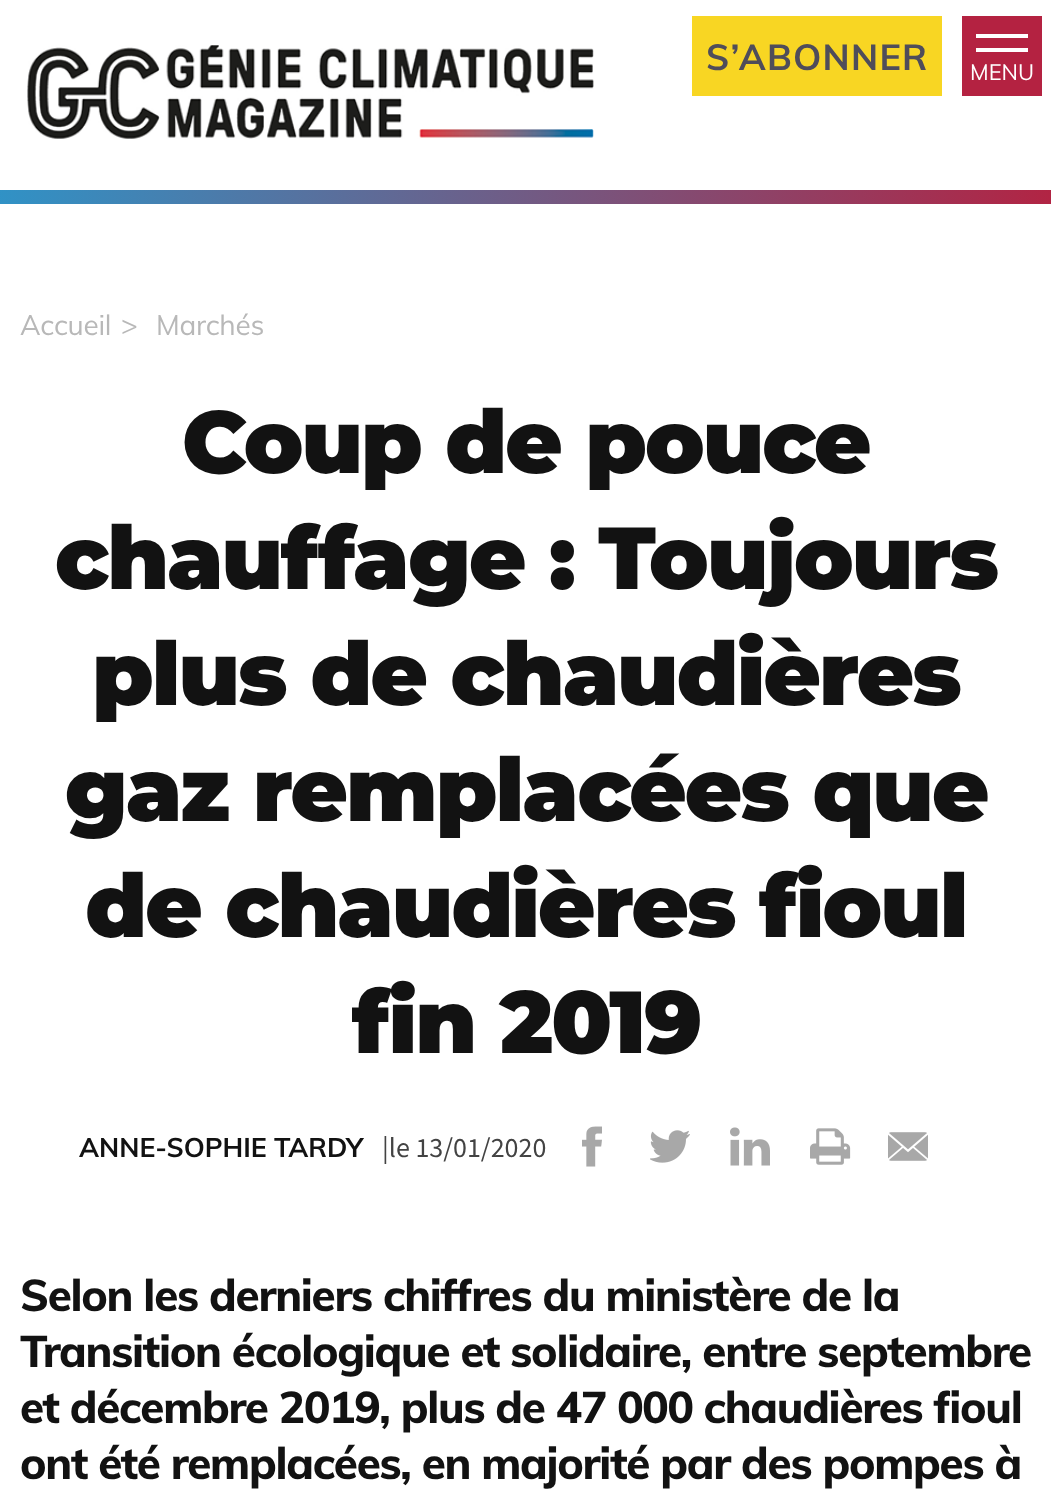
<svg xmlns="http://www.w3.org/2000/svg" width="1051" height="1496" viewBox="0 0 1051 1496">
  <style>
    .t1 { font: bold 36px Muli; letter-spacing: 1.25px; fill: #4f4d5a; }
    .t2 { font: 22px Muli; fill: #fff; }
    .t3 { font: 28px Muli; letter-spacing: -0.25px; fill: #b8b8b8; }
    .t4 { font: 900 88px Montserrat; letter-spacing: -1.9px; fill: #121212; }
    .t5 { font: bold 26.75px Muli; fill: #121212; }
    .t6 { font: 28px Source Sans Pro; fill: #434343; }
    .t7 { font: 800 44px Muli; letter-spacing: -1.28px; fill: #121212; }
  </style>
  <defs>
    <linearGradient id="g1" gradientUnits="userSpaceOnUse" x1="-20" y1="197" x2="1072" y2="197"><stop offset="0" stop-color="#2e94c8"/><stop offset="1" stop-color="#b42241"/></linearGradient>
  </defs>
  <rect width="100%" height="100%" fill="#fff"/>
  <image x="27" y="45" width="567" height="94" href="images/1.png"/>
  <rect x="692" y="16" width="250" height="80" fill="#f8d623"/>
  <text x="706" y="70" class="t1">S’ABONNER</text>
  <rect x="962" y="16" width="80" height="80" fill="#b42241"/>
  <rect x="976" y="34" width="52" height="4" fill="#fff"/>
  <rect x="976" y="48" width="52" height="4" fill="#fff"/>
  <text x="970" y="80" class="t2">MENU</text>
  <rect x="0" y="190" width="1051" height="14" fill="url(#g1)"/>
  <text x="20" y="335" class="t3">Accueil</text>
  <text x="121" y="335" class="t3">&gt;</text>
  <text x="156" y="335" class="t3">Marchés</text>
  <text x="182" y="473" class="t4">Coup de pouce</text>
  <text x="55" y="589" class="t4">chauffage : Toujours</text>
  <text x="92" y="705" class="t4">plus de chaudières</text>
  <text x="65" y="821" class="t4">gaz remplacées que</text>
  <text x="85" y="937" class="t4">de chaudières fioul</text>
  <text x="352" y="1053" class="t4">fin 2019</text>
  <text x="79" y="1157" class="t5">ANNE-SOPHIE TARDY</text>
  <text x="382" y="1157" class="t6">|le 13/01/2020</text>
  <image x="582" y="1126" width="20" height="41" href="images/2.png"/>
  <image x="650" y="1130" width="40" height="33" href="images/3.png"/>
  <image x="730" y="1127" width="40" height="39" href="images/4.png"/>
  <image x="810" y="1128" width="41" height="37" href="images/5.png"/>
  <image x="888" y="1132" width="40" height="29" href="images/6.png"/>
  <text x="20" y="1311" class="t7">Selon les derniers chiffres du ministère de la</text>
  <text x="20" y="1367" class="t7">Transition écologique et solidaire, entre septembre</text>
  <text x="20" y="1423" class="t7">et décembre 2019, plus de 47 000 chaudières fioul</text>
  <text x="20" y="1479" class="t7">ont été remplacées, en majorité par des pompes à</text>
</svg>
